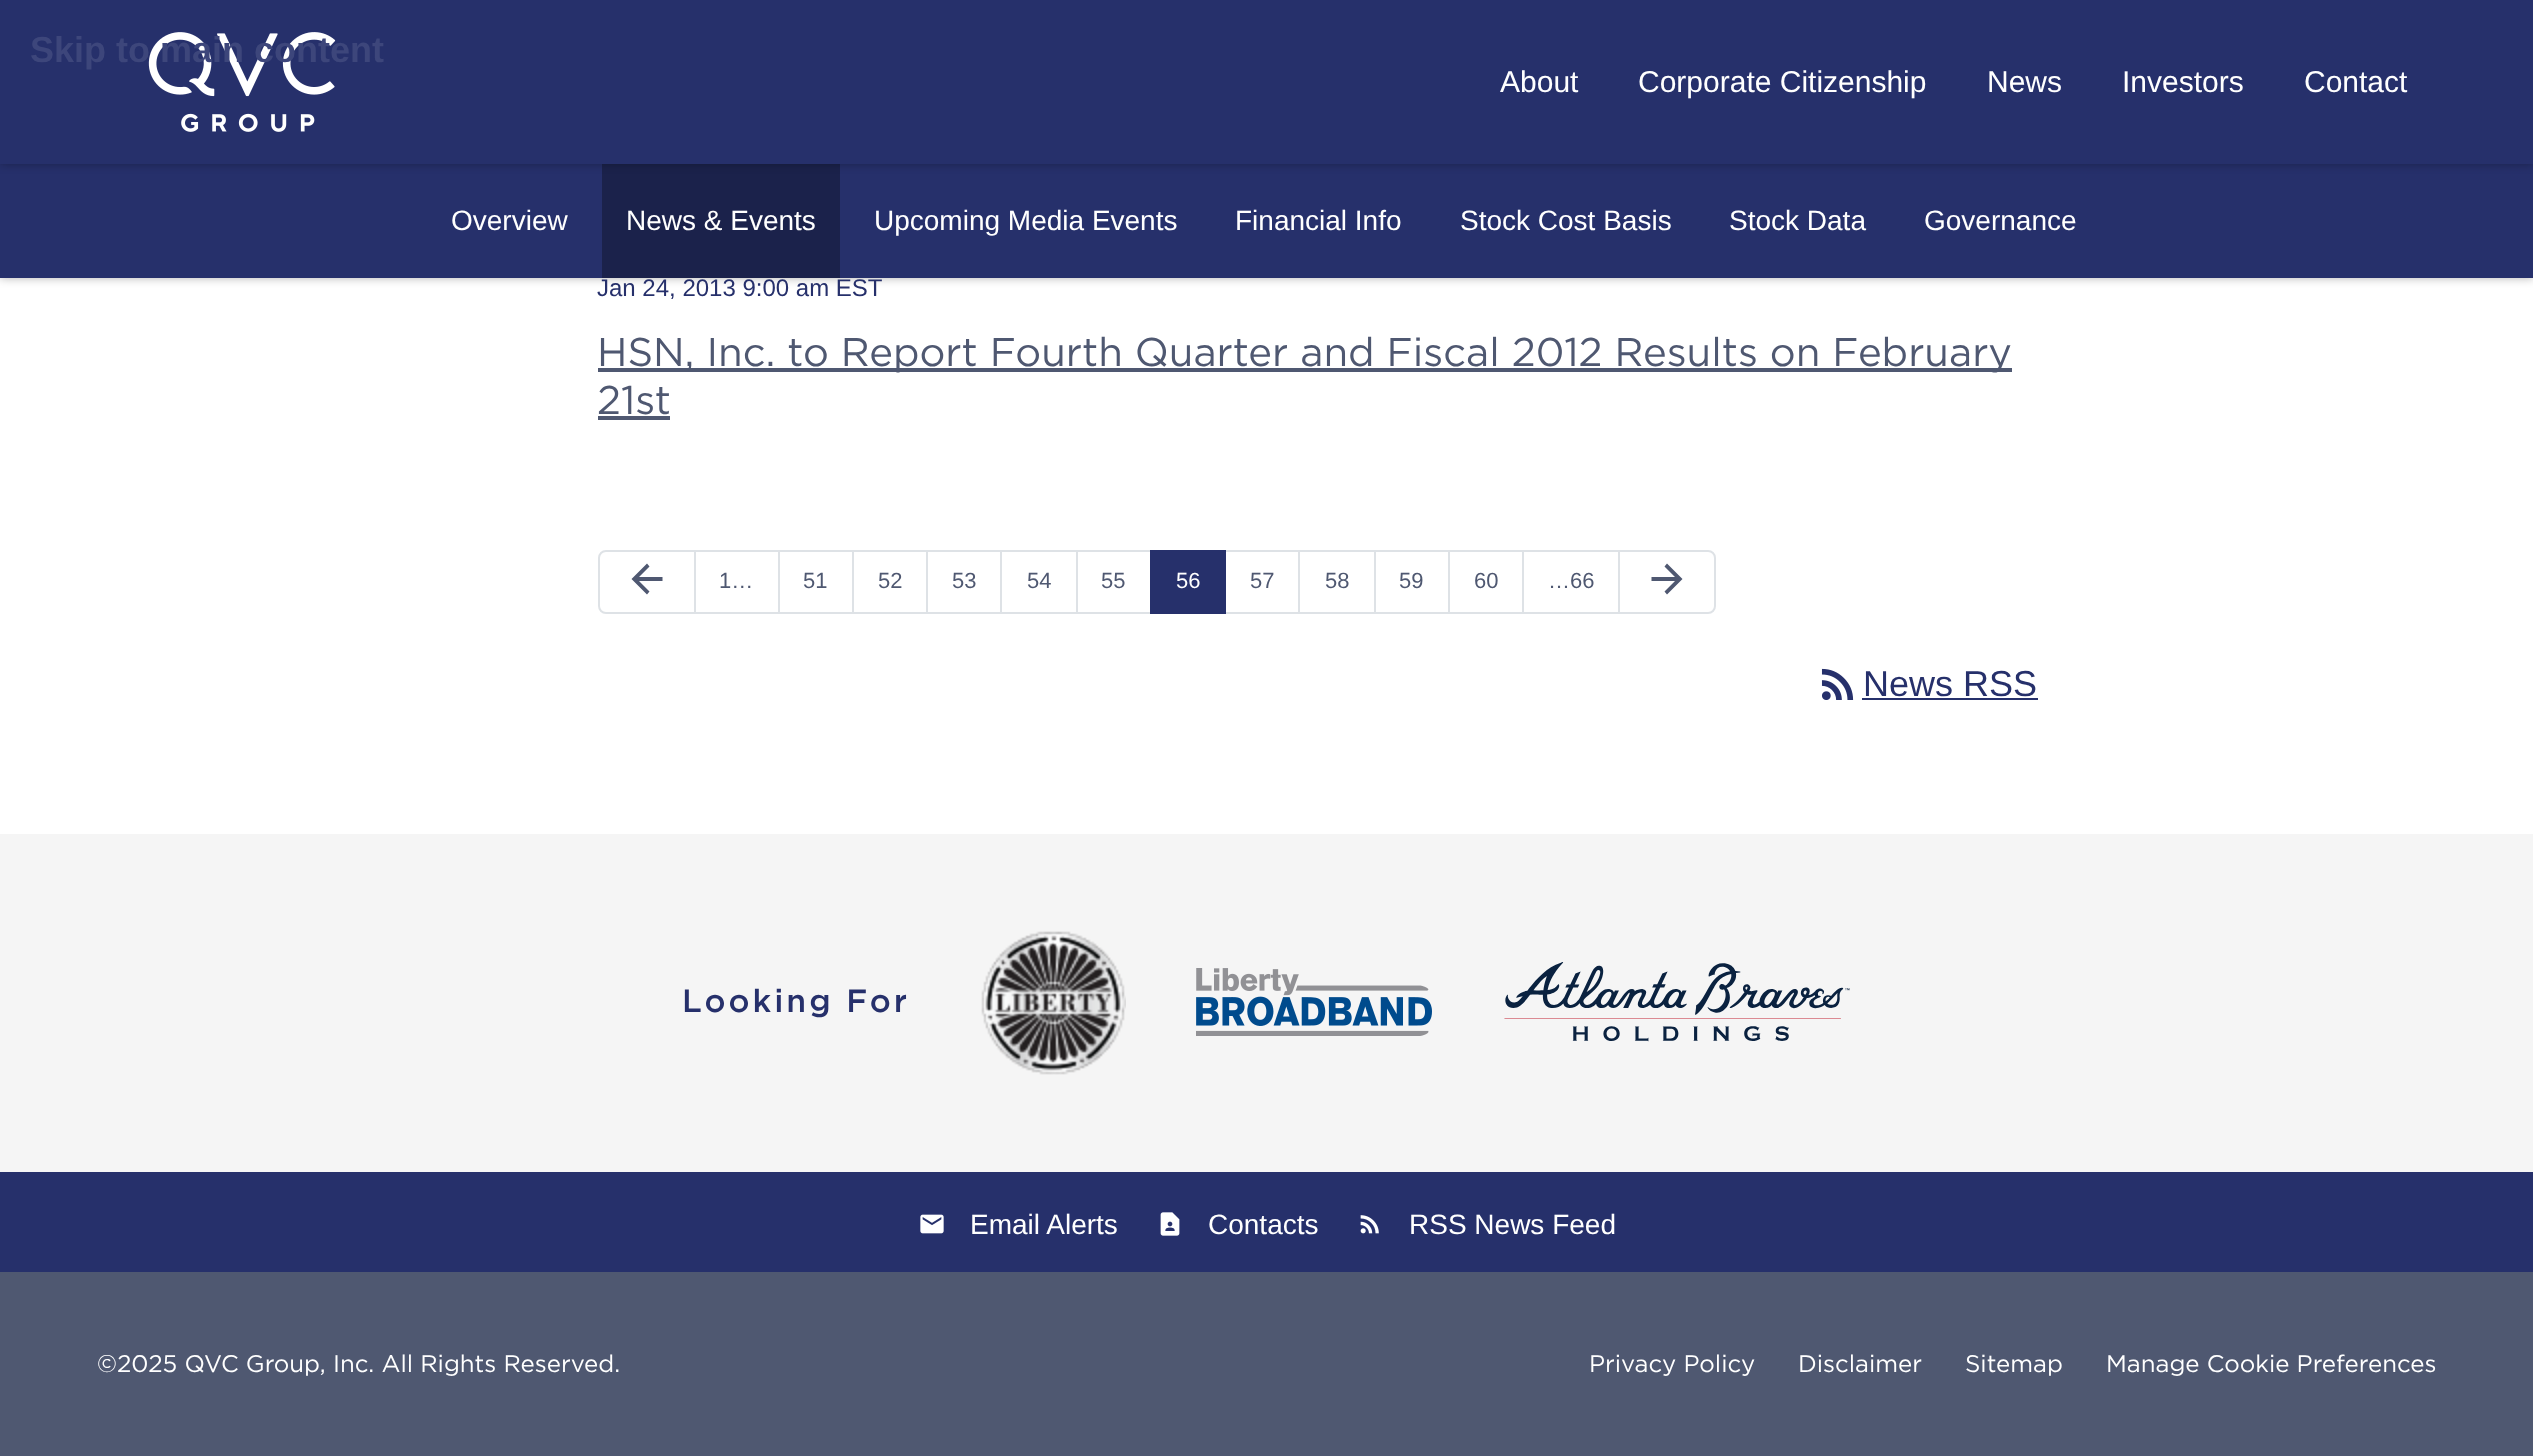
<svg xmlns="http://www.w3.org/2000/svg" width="2533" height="1456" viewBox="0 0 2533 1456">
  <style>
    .t1 { font: bold 36px Liberation Sans; fill: #3d467b; }
    .t2 { font: 30px Liberation Sans; fill: #fff; }
    .t3 { font: 28px Liberation Sans; fill: #fff; }
    .t4 { font: 24px Liberation Sans; fill: #26306b; }
    .t5 { font: 40px Gotham; fill: #4f5871; }
    .t6 { font: 22px Liberation Sans; fill: #4f5871; }
    .t7 { font: 22px Liberation Sans; fill: #fff; }
    .t8 { font: 36px Liberation Sans; fill: #26306b; }
    .t9 { font: 500 32px Gotham; letter-spacing: 3px; fill: #26306b; }
    .t10 { font: 24px Gotham; fill: #fff; }
  </style>
  <rect width="100%" height="100%" fill="#fff"/>
  <rect x="0" y="164" width="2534" height="114" fill="#0000004d" filter="blur(5px)"/>
  <rect x="0" y="164" width="2533" height="114" fill="#26306b"/>
  <rect x="602" y="164" width="238" height="114" fill="#1b224b"/>
  <rect x="0" y="0" width="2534" height="164" fill="#0000004d" filter="blur(5px)"/>
  <rect x="0" y="0" width="2533" height="164" fill="#26306b"/>
  <image x="148" y="32" width="188" height="100" href="images/1.png"/>
  <text x="30" y="62" class="t1">Skip to main content</text>
  <text x="1500" y="92" class="t2">About</text>
  <text x="1638" y="92" class="t2">Corporate Citizenship</text>
  <text x="1987" y="92" class="t2">News</text>
  <text x="2122" y="92" class="t2">Investors</text>
  <text x="2304" y="92" class="t2">Contact</text>
  <text x="451" y="230" class="t3">Overview</text>
  <text x="626" y="230" class="t3">News &amp; Events</text>
  <text x="874" y="230" class="t3">Upcoming Media Events</text>
  <text x="1235" y="230" class="t3">Financial Info</text>
  <text x="1460" y="230" class="t3">Stock Cost Basis</text>
  <text x="1729" y="230" class="t3">Stock Data</text>
  <text x="1924" y="230" class="t3">Governance</text>
  <text x="597" y="296" class="t4">Jan 24, 2013 9:00 am EST</text>
  <rect x="598" y="368" width="1414" height="4" fill="#4f5871"/>
  <text x="597" y="366" class="t5">HSN, Inc. to Report Fourth Quarter and Fiscal 2012 Results on February</text>
  <text x="597" y="414" class="t5">21st</text>
  <rect x="598" y="416" width="72" height="4" fill="#4f5871"/>
  <path d="M606 551H695V613H606C602 613 599 610 599 606V558C599 554 602 551 606 551Z" fill="none" stroke="#dee2e6" stroke-width="2"/>
  <path d="M662.5 577V581H639L649.5 591.5L647 594.5L631.5 579L647 563.5L649.5 566.5L639 577Z" fill="#4f5871"/>
  <rect x="695" y="551" width="84" height="62" fill="none" stroke="#dee2e6" stroke-width="2"/>
  <text x="719" y="588" class="t6">1…</text>
  <rect x="779" y="551" width="74" height="62" fill="none" stroke="#dee2e6" stroke-width="2"/>
  <text x="803" y="588" class="t6">51</text>
  <rect x="853" y="551" width="74" height="62" fill="none" stroke="#dee2e6" stroke-width="2"/>
  <text x="878" y="588" class="t6">52</text>
  <rect x="927" y="551" width="74" height="62" fill="none" stroke="#dee2e6" stroke-width="2"/>
  <text x="952" y="588" class="t6">53</text>
  <rect x="1001" y="551" width="76" height="62" fill="none" stroke="#dee2e6" stroke-width="2"/>
  <text x="1027" y="588" class="t6">54</text>
  <rect x="1077" y="551" width="74" height="62" fill="none" stroke="#dee2e6" stroke-width="2"/>
  <text x="1101" y="588" class="t6">55</text>
  <rect x="1225" y="551" width="74" height="62" fill="none" stroke="#dee2e6" stroke-width="2"/>
  <rect x="1150" y="550" width="76" height="64" fill="#26306b"/>
  <text x="1176" y="588" class="t7">56</text>
  <text x="1250" y="588" class="t6">57</text>
  <rect x="1299" y="551" width="76" height="62" fill="none" stroke="#dee2e6" stroke-width="2"/>
  <text x="1325" y="588" class="t6">58</text>
  <rect x="1375" y="551" width="74" height="62" fill="none" stroke="#dee2e6" stroke-width="2"/>
  <text x="1399" y="588" class="t6">59</text>
  <rect x="1449" y="551" width="74" height="62" fill="none" stroke="#dee2e6" stroke-width="2"/>
  <text x="1474" y="588" class="t6">60</text>
  <rect x="1523" y="551" width="96" height="62" fill="none" stroke="#dee2e6" stroke-width="2"/>
  <text x="1548" y="588" class="t6">…66</text>
  <path d="M1619 551H1708C1712 551 1715 554 1715 558V606C1715 610 1712 613 1708 613H1619Z" fill="#fff" stroke="#dee2e6" stroke-width="2"/>
  <path d="M1667 563.5L1682.5 579L1667 594.5L1664.5 591.5L1675 581H1651.5V577H1675L1664.5 566.5Z" fill="#4f5871"/>
  <image x="1821" y="668" width="33" height="32" href="images/2.png"/>
  <text x="1863" y="696" class="t8">News RSS</text>
  <rect x="1862" y="698" width="176" height="2" fill="#26306b"/>
  <rect x="0" y="834" width="2533" height="338" fill="#f5f5f5"/>
  <text x="682" y="1012" class="t9">Looking For</text>
  <image x="981" y="931" width="145" height="144" href="images/3.png"/>
  <image x="1196" y="968" width="236" height="68" href="images/4.png"/>
  <image x="1504" y="962" width="346" height="80" href="images/5.png"/>
  <rect x="0" y="1172" width="2533" height="100" fill="#26306b"/>
  <image x="920" y="1214" width="24" height="20" href="images/6.png"/>
  <text x="970" y="1234" class="t3">Email Alerts</text>
  <image x="1160" y="1212" width="20" height="24" href="images/7.png"/>
  <text x="1208" y="1234" class="t3">Contacts</text>
  <image x="1360" y="1215" width="19" height="19" href="images/8.png"/>
  <text x="1409" y="1234" class="t3">RSS News Feed</text>
  <rect x="0" y="1272" width="2533" height="184" fill="#4f5871"/>
  <text x="97" y="1372" class="t10">©2025 QVC Group, Inc. All Rights Reserved.</text>
  <text x="1589" y="1372" class="t10">Privacy Policy</text>
  <text x="1798" y="1372" class="t10">Disclaimer</text>
  <text x="1965" y="1372" class="t10">Sitemap</text>
  <text x="2106" y="1372" class="t10">Manage Cookie Preferences</text>
</svg>
